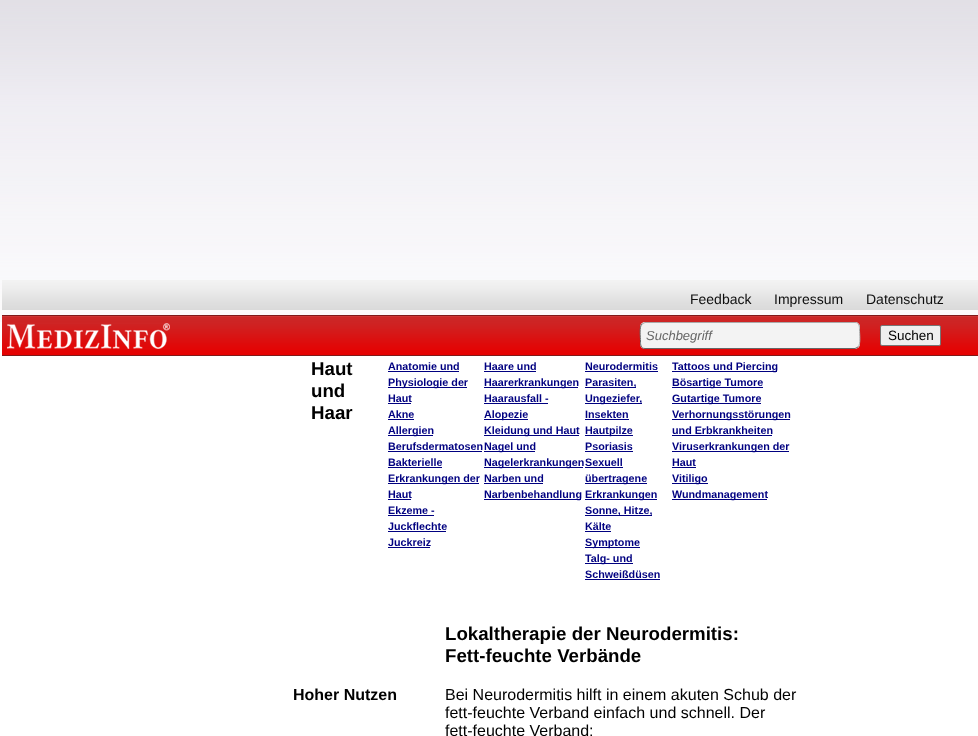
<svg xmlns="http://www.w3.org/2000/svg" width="978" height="736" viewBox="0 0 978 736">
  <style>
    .t1 { font: 14px Liberation Sans; fill: #0e0e0e; }
    .t2 { font: italic 13px Liberation Sans; fill: #666; }
    .t3 { font: 13.5px Liberation Sans; fill: #000; }
    .t4 { font: bold 18.7px Liberation Sans; fill: #000; }
    .t5 { font: bold 10.75px Liberation Sans; fill: #000080; }
    .t6 { font: bold 16px Liberation Sans; fill: #000; }
    .t7 { font: 16px Liberation Sans; fill: #000; }
  </style>
  <rect width="100%" height="100%" fill="#fff"/>
  <image x="0" y="0" width="978" height="322" href="images/1.png"/>
  <image x="2" y="280" width="976" height="30" href="images/2.png"/>
  <text x="690" y="304" class="t1">Feedback</text>
  <text x="774" y="304" class="t1">Impressum</text>
  <text x="866" y="304" class="t1">Datenschutz</text>
  <image x="2" y="315" width="976" height="41" href="images/3.png"/>
  <image x="7" y="323" width="163" height="26" href="images/4.png"/>
  <rect x="640" y="322" width="220" height="27" rx="5" fill="#f3f3f3"/>
  <path d="M642 324L645 322.5H855C859.5 322.5 859.5 326.5 859.5 330C859.5 333.5 861 344.5 858 347" fill="none" stroke="#aaa"/>
  <path d="M858 347L855 348.5H645C640.5 348.5 640.5 344.5 640.5 341C640.5 337.5 639 326.5 642 324" fill="none" stroke="#666"/>
  <text x="646" y="340" class="t2">Suchbegriff</text>
  <rect x="880.5" y="325.5" width="60" height="20" rx="1.5" fill="#efefef" stroke="#767676"/>
  <text x="888" y="340" class="t3">Suchen</text>
  <text x="311" y="375" class="t4">Haut</text>
  <text x="311" y="397" class="t4">und</text>
  <text x="311" y="419" class="t4">Haar</text>
  <text x="388" y="370" class="t5">Anatomie und</text>
  <rect x="388" y="371" width="71" height="1" fill="#000080"/>
  <rect x="388" y="387" width="79" height="1" fill="#000080"/>
  <text x="388" y="386" class="t5">Physiologie der</text>
  <text x="388" y="402" class="t5">Haut</text>
  <rect x="388" y="403" width="23" height="1" fill="#000080"/>
  <text x="388" y="418" class="t5">Akne</text>
  <rect x="388" y="419" width="26" height="1" fill="#000080"/>
  <rect x="388" y="435" width="45" height="1" fill="#000080"/>
  <text x="388" y="434" class="t5">Allergien</text>
  <text x="388" y="450" class="t5">Berufsdermatosen</text>
  <rect x="388" y="451" width="94" height="1" fill="#000080"/>
  <text x="388" y="466" class="t5">Bakterielle</text>
  <rect x="388" y="467" width="54" height="1" fill="#000080"/>
  <rect x="388" y="483" width="91" height="1" fill="#000080"/>
  <text x="388" y="482" class="t5">Erkrankungen der</text>
  <text x="388" y="498" class="t5">Haut</text>
  <rect x="388" y="499" width="23" height="1" fill="#000080"/>
  <text x="388" y="514" class="t5">Ekzeme -</text>
  <rect x="388" y="515" width="46" height="1" fill="#000080"/>
  <text x="388" y="530" class="t5">Juckflechte</text>
  <rect x="388" y="531" width="58" height="1" fill="#000080"/>
  <text x="388" y="546" class="t5">Juckreiz</text>
  <rect x="388" y="547" width="42" height="1" fill="#000080"/>
  <text x="484" y="370" class="t5">Haare und</text>
  <rect x="484" y="371" width="52" height="1" fill="#000080"/>
  <rect x="484" y="387" width="94" height="1" fill="#000080"/>
  <text x="484" y="386" class="t5">Haarerkrankungen</text>
  <text x="484" y="402" class="t5">Haarausfall -</text>
  <rect x="484" y="403" width="64" height="1" fill="#000080"/>
  <rect x="484" y="419" width="44" height="1" fill="#000080"/>
  <text x="484" y="418" class="t5">Alopezie</text>
  <rect x="484" y="435" width="95" height="1" fill="#000080"/>
  <text x="484" y="434" class="t5">Kleidung und Haut</text>
  <rect x="484" y="451" width="51" height="1" fill="#000080"/>
  <text x="484" y="450" class="t5">Nagel und</text>
  <rect x="484" y="467" width="99" height="1" fill="#000080"/>
  <text x="484" y="466" class="t5">Nagelerkrankungen</text>
  <text x="484" y="482" class="t5">Narben und</text>
  <rect x="484" y="483" width="59" height="1" fill="#000080"/>
  <rect x="484" y="499" width="97" height="1" fill="#000080"/>
  <text x="484" y="498" class="t5">Narbenbehandlung</text>
  <text x="585" y="370" class="t5">Neurodermitis</text>
  <rect x="585" y="371" width="73" height="1" fill="#000080"/>
  <rect x="585" y="387" width="51" height="1" fill="#000080"/>
  <text x="585" y="386" class="t5">Parasiten,</text>
  <rect x="585" y="403" width="57" height="1" fill="#000080"/>
  <text x="585" y="402" class="t5">Ungeziefer,</text>
  <text x="585" y="418" class="t5">Insekten</text>
  <rect x="585" y="419" width="44" height="1" fill="#000080"/>
  <rect x="585" y="435" width="48" height="1" fill="#000080"/>
  <text x="585" y="434" class="t5">Hautpilze</text>
  <text x="585" y="450" class="t5">Psoriasis</text>
  <rect x="585" y="451" width="48" height="1" fill="#000080"/>
  <text x="585" y="466" class="t5">Sexuell</text>
  <rect x="585" y="467" width="38" height="1" fill="#000080"/>
  <rect x="585" y="483" width="62" height="1" fill="#000080"/>
  <text x="585" y="482" class="t5">übertragene</text>
  <rect x="585" y="499" width="72" height="1" fill="#000080"/>
  <text x="585" y="498" class="t5">Erkrankungen</text>
  <rect x="585" y="515" width="67" height="1" fill="#000080"/>
  <text x="585" y="514" class="t5">Sonne, Hitze,</text>
  <text x="585" y="530" class="t5">Kälte</text>
  <rect x="585" y="531" width="26" height="1" fill="#000080"/>
  <rect x="585" y="547" width="55" height="1" fill="#000080"/>
  <text x="585" y="546" class="t5">Symptome</text>
  <rect x="585" y="563" width="48" height="1" fill="#000080"/>
  <text x="585" y="562" class="t5">Talg- und</text>
  <text x="585" y="578" class="t5">Schweißdüsen</text>
  <rect x="585" y="579" width="75" height="1" fill="#000080"/>
  <rect x="672" y="371" width="105" height="1" fill="#000080"/>
  <text x="672" y="370" class="t5">Tattoos und Piercing</text>
  <rect x="672" y="387" width="91" height="1" fill="#000080"/>
  <text x="672" y="386" class="t5">Bösartige Tumore</text>
  <rect x="672" y="403" width="89" height="1" fill="#000080"/>
  <text x="672" y="402" class="t5">Gutartige Tumore</text>
  <rect x="672" y="419" width="118" height="1" fill="#000080"/>
  <text x="672" y="418" class="t5">Verhornungsstörungen</text>
  <text x="672" y="434" class="t5">und Erbkrankheiten</text>
  <rect x="672" y="435" width="100" height="1" fill="#000080"/>
  <rect x="672" y="451" width="117" height="1" fill="#000080"/>
  <text x="672" y="450" class="t5">Viruserkrankungen der</text>
  <text x="672" y="466" class="t5">Haut</text>
  <rect x="672" y="467" width="24" height="1" fill="#000080"/>
  <rect x="672" y="483" width="36" height="1" fill="#000080"/>
  <text x="672" y="482" class="t5">Vitiligo</text>
  <rect x="672" y="499" width="95" height="1" fill="#000080"/>
  <text x="672" y="498" class="t5">Wundmanagement</text>
  <text x="445" y="640" class="t4">Lokaltherapie der Neurodermitis:</text>
  <text x="445" y="662" class="t4">Fett-feuchte Verbände</text>
  <text x="293" y="700" class="t6">Hoher Nutzen</text>
  <text x="445" y="700" class="t7">Bei Neurodermitis hilft in einem akuten Schub der</text>
  <text x="445" y="718" class="t7">fett-feuchte Verband einfach und schnell. Der</text>
  <text x="445" y="736" class="t7">fett-feuchte Verband:</text>
</svg>
